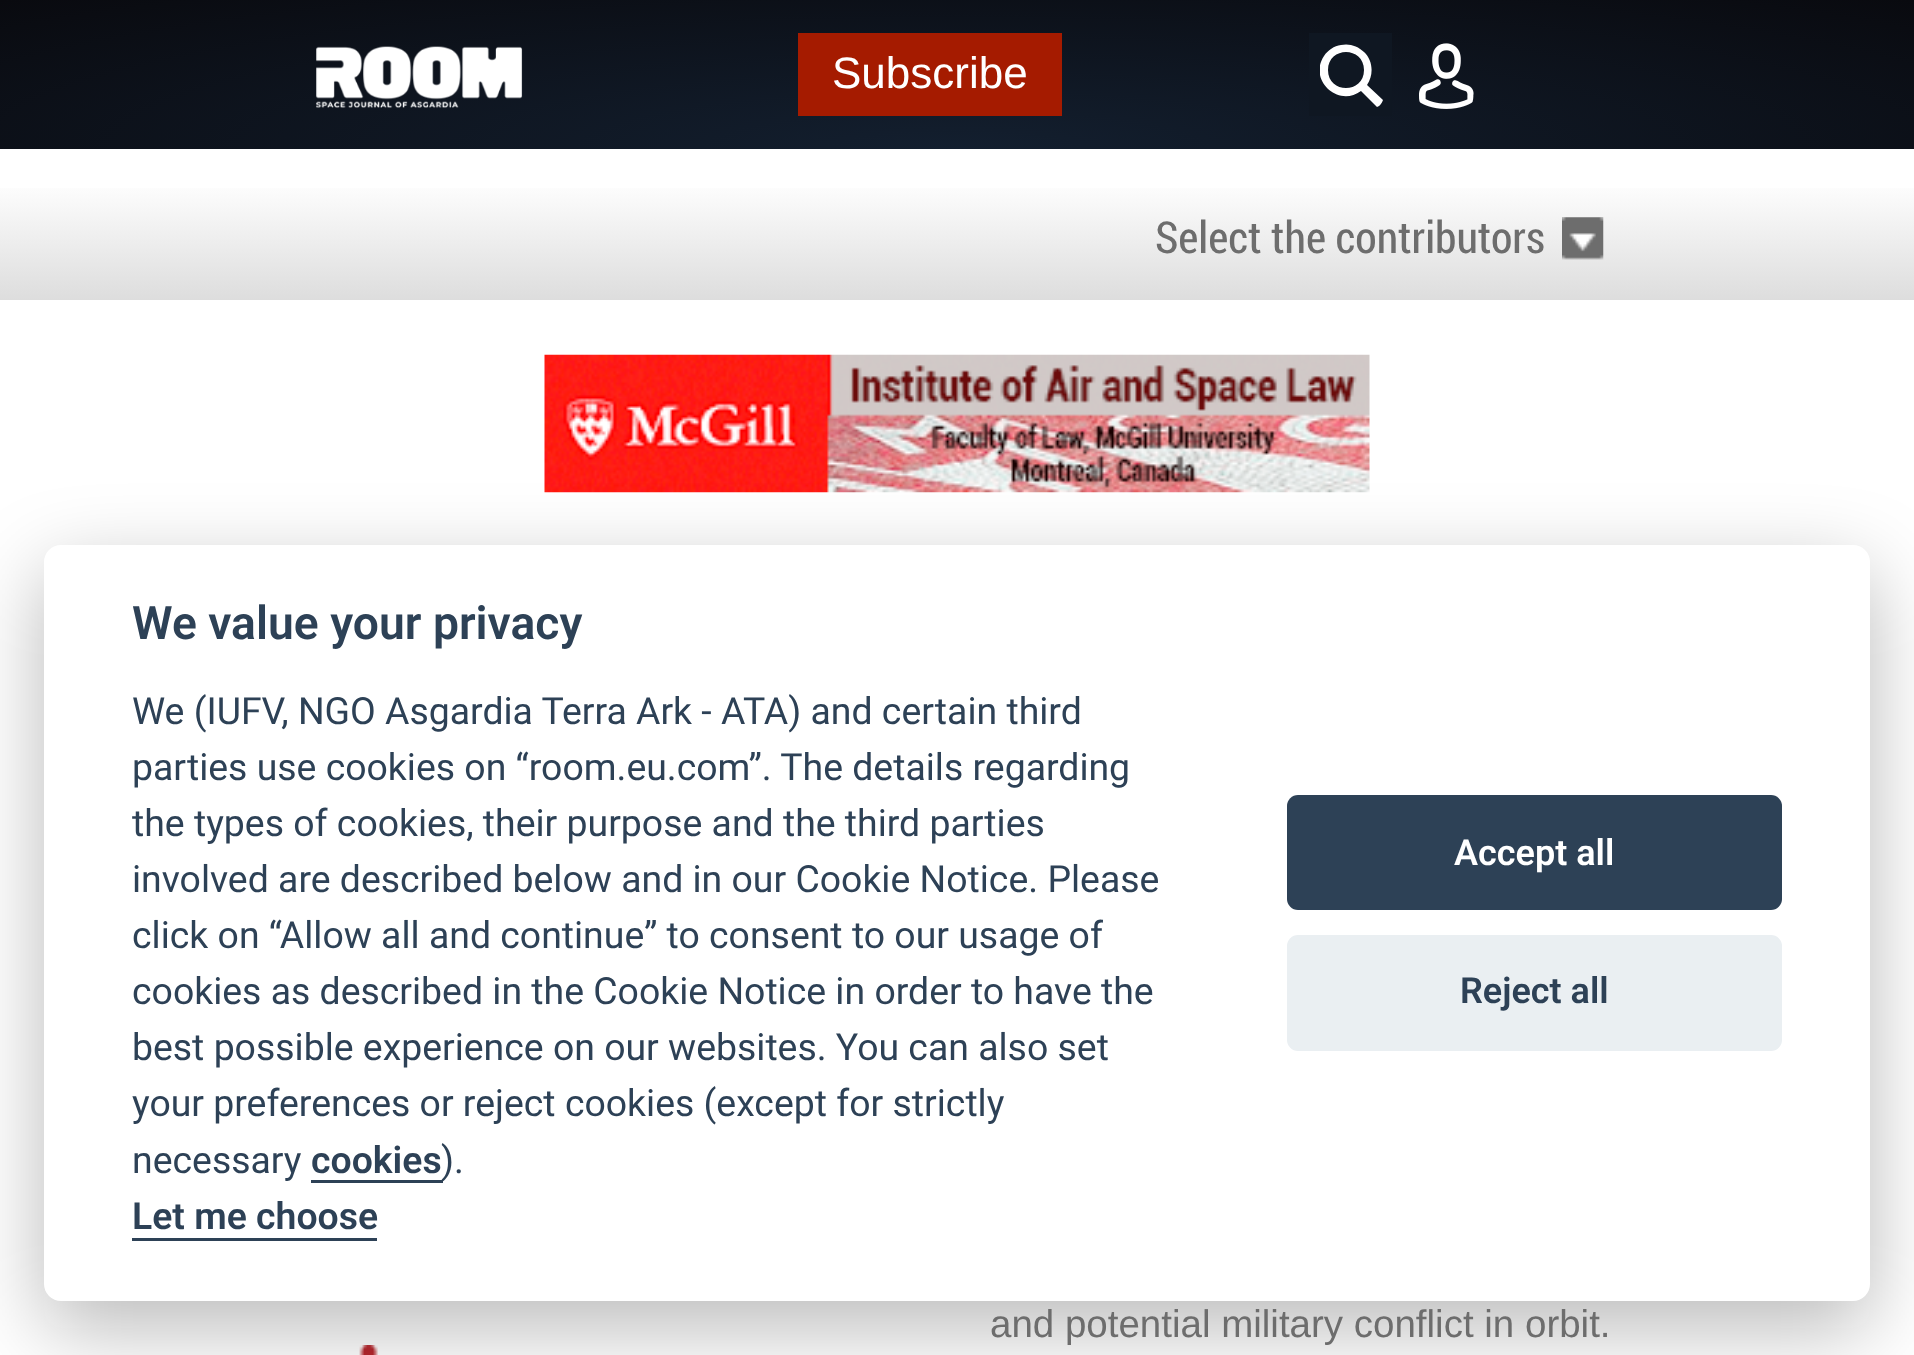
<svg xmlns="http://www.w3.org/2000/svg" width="1914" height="1355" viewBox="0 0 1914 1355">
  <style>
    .t1 { font: 44px Liberation Sans; fill: #fff; }
    .t2 { font: 44px Roboto Condensed; fill: #6d6d6d; }
    .t3 { font: 600 46.25px Roboto; fill: #2d4156; }
    .t4 { font: 37.4px Roboto; fill: #2d4156; }
    .t5 { font: 600 37.4px Roboto; fill: #2d4156; }
    .t6 { font: 600 36px Roboto; fill: #fff; }
    .t7 { font: 600 36px Roboto; fill: #2d4156; }
    .t8 { font: 38.5px Liberation Sans; fill: #6d6d6d; }
  </style>
  <defs>
    <radialGradient id="g1" gradientUnits="userSpaceOnUse" cx="0" cy="0" r="1" gradientTransform="matrix(1353 0 0 210 957 149)"><stop offset="0" stop-color="#131f2f"/><stop offset="1" stop-color="#090a0f"/></radialGradient>
    <clipPath id="clip1"><rect x="1320" y="44" width="63" height="63"/></clipPath>
    <linearGradient id="g2" gradientUnits="userSpaceOnUse" x1="957" y1="179" x2="957" y2="300"><stop offset="0" stop-color="#fff"/><stop offset="1" stop-color="#ddd"/></linearGradient>
  </defs>
  <rect width="100%" height="100%" fill="#fff"/>
  <rect x="0" y="0" width="1914" height="149" fill="url(#g1)"/>
  <image x="316" y="46" width="207" height="62" href="images/1.png"/>
  <rect x="798" y="33" width="264" height="83" fill="#a51b00"/>
  <text x="832" y="88" class="t1">Subscribe</text>
  <rect x="1309" y="33" width="83" height="83" fill="#0f1722"/>
  <g clip-path="url(#clip1)">
    <path d="M1367 85C1374 75 1373 60 1364 52C1358 46 1349 43 1341 45C1334 46 1328 50 1324 56C1308 80 1338 108 1361 91L1377 107C1380 106 1382 103 1383 100ZM1328 70C1328 46 1364 46 1364 70C1364 94 1328 94 1328 70Z" fill="#fff"/>
  </g>
  <image x="1419" y="43" width="55" height="66" href="images/2.png"/>
  <rect x="0" y="188" width="1914" height="112" fill="url(#g2)"/>
  <image x="1562" y="217" width="42" height="43" href="images/3.png"/>
  <text x="1155" y="253" class="t2">Select the contributors</text>
  <image x="544" y="354" width="826" height="139" href="images/4.png"/>
  <rect x="359" y="1345" width="19" height="10" fill="#b7272e"/>
  <image x="347" y="1345" width="178" height="10" href="images/5.png"/>
  <rect x="44" y="572" width="1826" height="756" rx="17" fill="#02020347" filter="blur(41px)"/>
  <rect x="44" y="545" width="1826" height="756" rx="17" fill="#fff"/>
  <text x="132" y="639" class="t3">We value your privacy</text>
  <text x="132" y="724" class="t4">We (IUFV, NGO Asgardia Terra Ark - ATA) and certain third</text>
  <text x="132" y="780" class="t4">parties use cookies on “room.eu.com”. The details regarding</text>
  <text x="132" y="836" class="t4">the types of cookies, their purpose and the third parties</text>
  <text x="132" y="892" class="t4">involved are described below and in our Cookie Notice. Please</text>
  <text x="132" y="948" class="t4">click on “Allow all and continue” to consent to our usage of</text>
  <text x="132" y="1004" class="t4">cookies as described in the Cookie Notice in order to have the</text>
  <text x="132" y="1060" class="t4">best possible experience on our websites. You can also set</text>
  <text x="132" y="1116" class="t4">your preferences or reject cookies (except for strictly</text>
  <text x="132" y="1173" class="t4">necessary</text>
  <text x="311" y="1173" class="t5">cookies</text>
  <rect x="311" y="1180" width="132" height="3" fill="#2d4156"/>
  <text x="441" y="1173" class="t4">).</text>
  <text x="132" y="1229" class="t5">Let me choose</text>
  <rect x="132" y="1238" width="245" height="3" fill="#2d4156"/>
  <rect x="1287" y="795" width="495" height="115" rx="11" fill="#2d4156"/>
  <text x="1454" y="865" class="t6">Accept all</text>
  <rect x="1287" y="935" width="495" height="116" rx="11" fill="#eaeff2"/>
  <text x="1460" y="1003" class="t7">Reject all</text>
  <text x="990" y="1337" class="t8">and potential military conflict in orbit.</text>
</svg>
